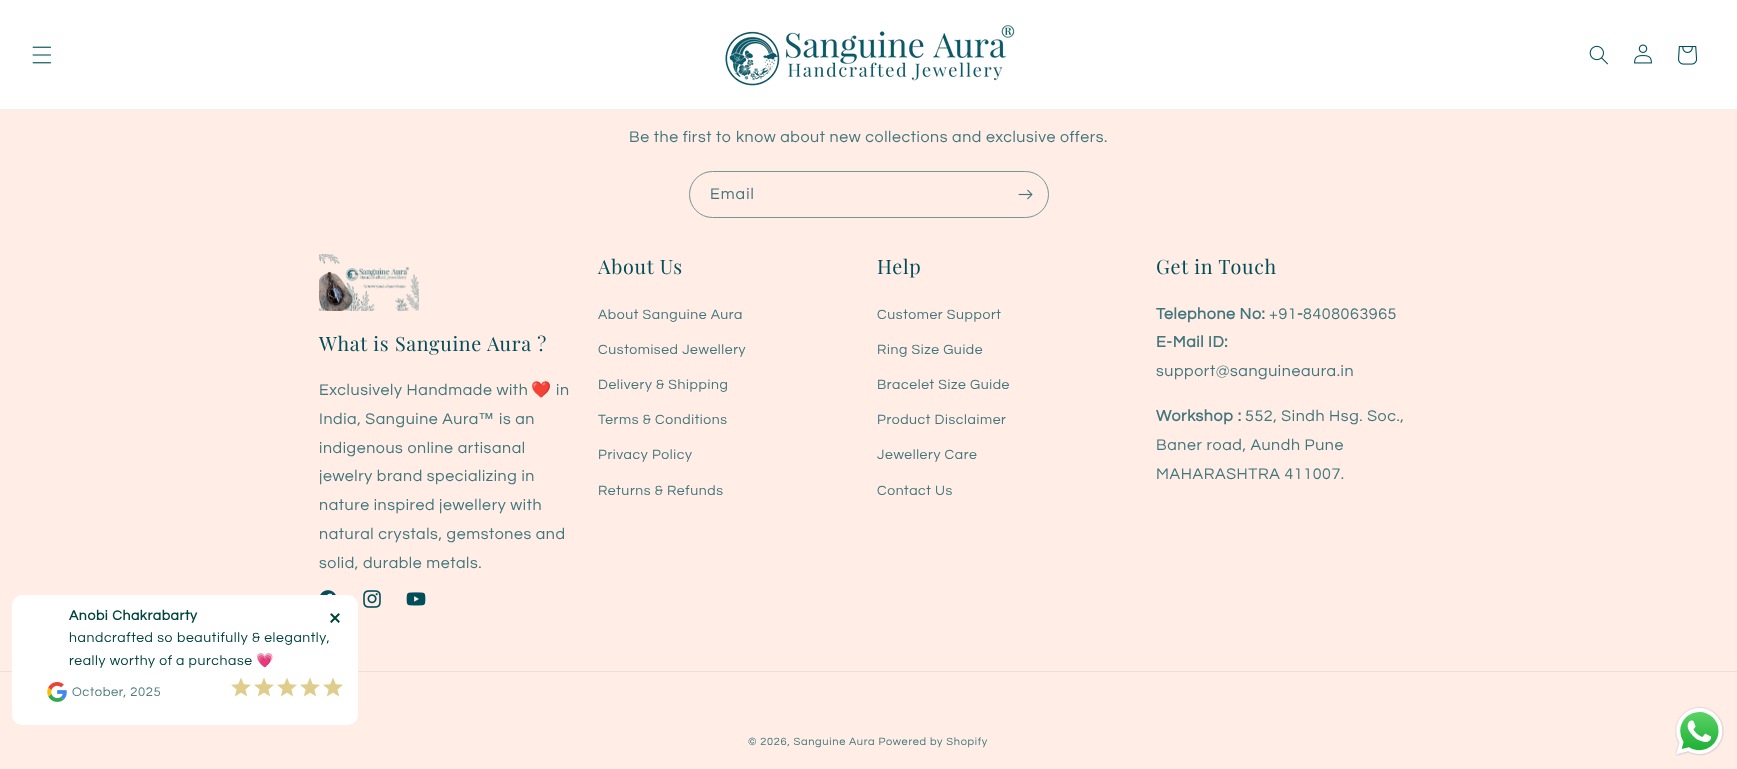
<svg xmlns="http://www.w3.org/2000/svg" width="1737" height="769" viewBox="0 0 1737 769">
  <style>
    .t1 { font: 16px Questrial; letter-spacing: 0.6px; fill: #40767c; }
    .t2 { font: 16px Questrial; letter-spacing: 1px; fill: #40767c; }
    .t3 { font: bold 14px Questrial; letter-spacing: 0.6px; fill: #00433f; }
    .t4 { font: 14px Questrial; letter-spacing: 0.6px; fill: #00433f; }
    .t5 { font: 14px Noto Color Emoji; letter-spacing: 0.6px; fill: #00433f; }
    .t6 { font: 13px Questrial; letter-spacing: 0.6px; fill: #4d7b79; }
    .t7 { font: 19.75px Playfair Display; letter-spacing: 0.7px; fill: #004e59; }
    .t8 { font: 16px Noto Color Emoji; letter-spacing: 0.6px; fill: #40767c; }
    .t9 { font: 16px Liberation Sans; letter-spacing: 0.6px; fill: #40767c; }
    .t10 { font: 14px Questrial; letter-spacing: 0.6px; fill: #40767c; }
    .t11 { font: bold 16px Questrial; letter-spacing: 0.6px; fill: #40767c; }
    .t12 { font: 11px Questrial; letter-spacing: 0.7px; fill: #40767c; }
  </style>
  <defs>
    <clipPath id="clip1"><rect x="329" y="612" width="12" height="12" rx="6"/></clipPath>
  </defs>
  <rect width="100%" height="100%" fill="#ffede6"/>
  <rect x="0" y="0" width="1737" height="109" fill="#fff"/>
  <rect x="0" y="109" width="1737" height="1" fill="#ebf1f2"/>
  <image x="32" y="46" width="20" height="18" href="images/1.png"/>
  <image x="725" y="25" width="290" height="61" href="images/2.png"/>
  <image x="1589" y="45" width="19" height="20" href="images/3.png"/>
  <image x="1634" y="44" width="18" height="20" href="images/4.png"/>
  <image x="1678" y="46" width="20" height="19" href="images/5.png"/>
  <text x="629" y="142" class="t1">Be the first to know about new collections and exclusive offers.</text>
  <rect x="689.5" y="171.5" width="359" height="46" rx="23" fill="none" stroke="#739698"/>
  <text x="710" y="199" class="t2">Email</text>
  <image x="1018" y="189" width="15" height="11" href="images/6.png"/>
  <rect x="0" y="671" width="1737" height="1" fill="#ebe0db"/>
  <rect x="12" y="595" width="346" height="130" rx="10" fill="#fff"/>
  <text x="69" y="620" class="t3">Anobi Chakrabarty</text>
  <text x="69" y="642" class="t4">handcrafted so beautifully &amp; elegantly,</text>
  <text x="69" y="665" class="t4">really worthy of a purchase</text>
  <text x="256" y="665" class="t5">💗</text>
  <g clip-path="url(#clip1)">
    <path d="M330 623L340 613M330 613L340 623" fill="none" stroke="#00433f" stroke-width="2"/>
  </g>
  <image x="47" y="682" width="20" height="20" href="images/7.png"/>
  <text x="72" y="696" class="t6">October, 2025</text>
  <image x="231" y="677" width="20" height="20" href="images/8.png"/>
  <image x="254" y="677" width="20" height="20" href="images/8.png"/>
  <image x="277" y="677" width="20" height="20" href="images/8.png"/>
  <image x="300" y="677" width="20" height="20" href="images/8.png"/>
  <image x="323" y="677" width="20" height="20" href="images/8.png"/>
  <image x="319" y="254" width="100" height="57" href="images/9.png"/>
  <text x="319" y="351" class="t7">What is Sanguine Aura ?</text>
  <text x="319" y="395" class="t1">Exclusively Handmade with</text>
  <text x="531" y="395" class="t8">❤️</text>
  <text x="556" y="395" class="t1">in</text>
  <text x="319" y="424" class="t1">India, Sanguine Aura</text>
  <text x="478" y="424" class="t9">™</text>
  <text x="499" y="424" class="t1">is an</text>
  <text x="319" y="453" class="t1">indigenous online artisanal</text>
  <text x="319" y="481" class="t1">jewelry brand specializing in</text>
  <text x="319" y="510" class="t1">nature inspired jewellery with</text>
  <text x="319" y="539" class="t1">natural crystals, gemstones and</text>
  <text x="319" y="568" class="t1">solid, durable metals.</text>
  <image x="320" y="590" width="16" height="5" href="images/10.png"/>
  <image x="363" y="590" width="18" height="18" href="images/11.png"/>
  <image x="406" y="592" width="20" height="14" href="images/12.png"/>
  <text x="598" y="274" class="t7">About Us</text>
  <text x="598" y="319" class="t10">About Sanguine Aura</text>
  <text x="598" y="354" class="t10">Customised Jewellery</text>
  <text x="598" y="389" class="t10">Delivery &amp; Shipping</text>
  <text x="598" y="424" class="t10">Terms &amp; Conditions</text>
  <text x="598" y="459" class="t10">Privacy Policy</text>
  <text x="598" y="495" class="t10">Returns &amp; Refunds</text>
  <text x="877" y="274" class="t7">Help</text>
  <text x="877" y="319" class="t10">Customer Support</text>
  <text x="877" y="354" class="t10">Ring Size Guide</text>
  <text x="877" y="389" class="t10">Bracelet Size Guide</text>
  <text x="877" y="424" class="t10">Product Disclaimer</text>
  <text x="877" y="459" class="t10">Jewellery Care</text>
  <text x="877" y="495" class="t10">Contact Us</text>
  <text x="1156" y="274" class="t7">Get in Touch</text>
  <text x="1156" y="319" class="t11">Telephone No:</text>
  <text x="1269" y="319" class="t1">+91</text>
  <text x="1297" y="319" class="t11">-</text>
  <text x="1303" y="319" class="t1">8408063965</text>
  <text x="1156" y="347" class="t11">E-Mail ID:</text>
  <text x="1156" y="376" class="t1">support@sanguineaura.in</text>
  <text x="1156" y="421" class="t11">Workshop :</text>
  <text x="1245" y="421" class="t1">552, Sindh Hsg. Soc.,</text>
  <text x="1156" y="450" class="t1">Baner road, Aundh Pune</text>
  <text x="1156" y="479" class="t1">MAHARASHTRA 411007.</text>
  <text x="748" y="745" class="t12">© 2026, Sanguine Aura Powered by Shopify</text>
  <image x="1675" y="706" width="49" height="50" href="images/13.png"/>
</svg>
